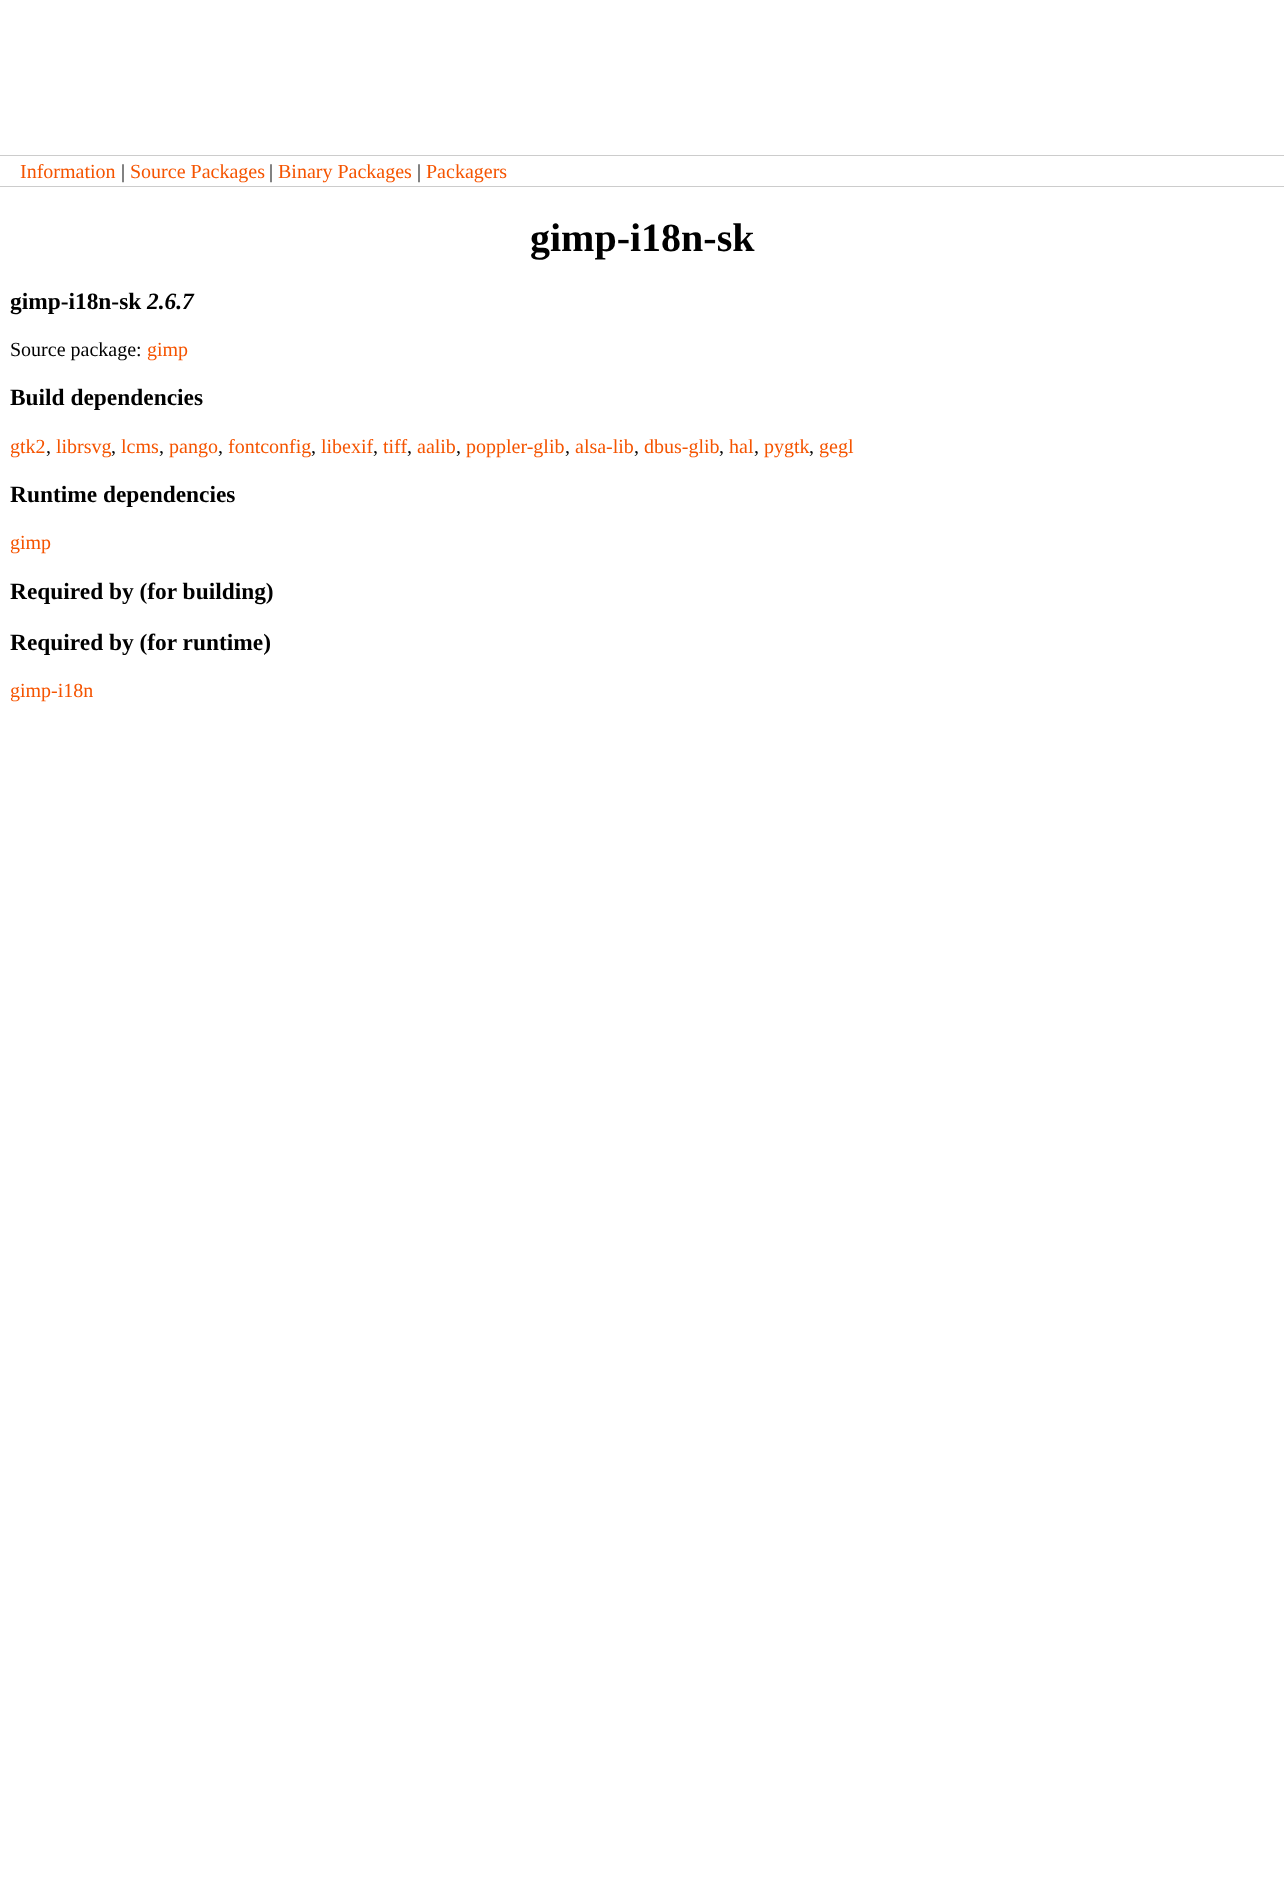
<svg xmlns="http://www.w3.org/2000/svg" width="1284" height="1883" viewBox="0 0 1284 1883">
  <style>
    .t1 { font: 20px Liberation Serif; fill: #f55400; }
    .t2 { font: 20px Liberation Serif; fill: #000; }
    .t3 { font: bold 40px Liberation Serif; fill: #000; }
    .t4 { font: bold 23.4px Liberation Serif; fill: #000; }
    .t5 { font: italic bold 23.4px Liberation Serif; fill: #000; }
  </style>
  <rect width="100%" height="100%" fill="#fff"/>
  <rect x="0" y="155" width="1284" height="1" fill="#ccc"/>
  <rect x="0" y="186" width="1284" height="1" fill="#ccc"/>
  <text x="20" y="178" class="t1">Information</text>
  <text x="121" y="178" class="t2">|</text>
  <text x="130" y="178" class="t1">Source Packages</text>
  <text x="269" y="178" class="t2">|</text>
  <text x="278" y="178" class="t1">Binary Packages</text>
  <text x="417" y="178" class="t2">|</text>
  <text x="426" y="178" class="t1">Packagers</text>
  <text x="530" y="251" class="t3">gimp-i18n-sk</text>
  <text x="10" y="309" class="t4">gimp-i18n-sk</text>
  <text x="147" y="309" class="t5">2.6.7</text>
  <text x="10" y="356" class="t2">Source package:</text>
  <text x="147" y="356" class="t1">gimp</text>
  <text x="10" y="405" class="t4">Build dependencies</text>
  <text x="10" y="453" class="t1">gtk2</text>
  <text x="46" y="453" class="t2">,</text>
  <text x="56" y="453" class="t1">librsvg</text>
  <text x="111" y="453" class="t2">,</text>
  <text x="121" y="453" class="t1">lcms</text>
  <text x="159" y="453" class="t2">,</text>
  <text x="169" y="453" class="t1">pango</text>
  <text x="218" y="453" class="t2">,</text>
  <text x="228" y="453" class="t1">fontconfig</text>
  <text x="311" y="453" class="t2">,</text>
  <text x="321" y="453" class="t1">libexif</text>
  <text x="373" y="453" class="t2">,</text>
  <text x="383" y="453" class="t1">tiff</text>
  <text x="407" y="453" class="t2">,</text>
  <text x="417" y="453" class="t1">aalib</text>
  <text x="456" y="453" class="t2">,</text>
  <text x="466" y="453" class="t1">poppler-glib</text>
  <text x="565" y="453" class="t2">,</text>
  <text x="575" y="453" class="t1">alsa-lib</text>
  <text x="634" y="453" class="t2">,</text>
  <text x="644" y="453" class="t1">dbus-glib</text>
  <text x="719" y="453" class="t2">,</text>
  <text x="729" y="453" class="t1">hal</text>
  <text x="754" y="453" class="t2">,</text>
  <text x="764" y="453" class="t1">pygtk</text>
  <text x="809" y="453" class="t2">,</text>
  <text x="819" y="453" class="t1">gegl</text>
  <text x="10" y="502" class="t4">Runtime dependencies</text>
  <text x="10" y="549" class="t1">gimp</text>
  <text x="10" y="599" class="t4">Required by (for building)</text>
  <text x="10" y="650" class="t4">Required by (for runtime)</text>
  <text x="10" y="697" class="t1">gimp-i18n</text>
</svg>
